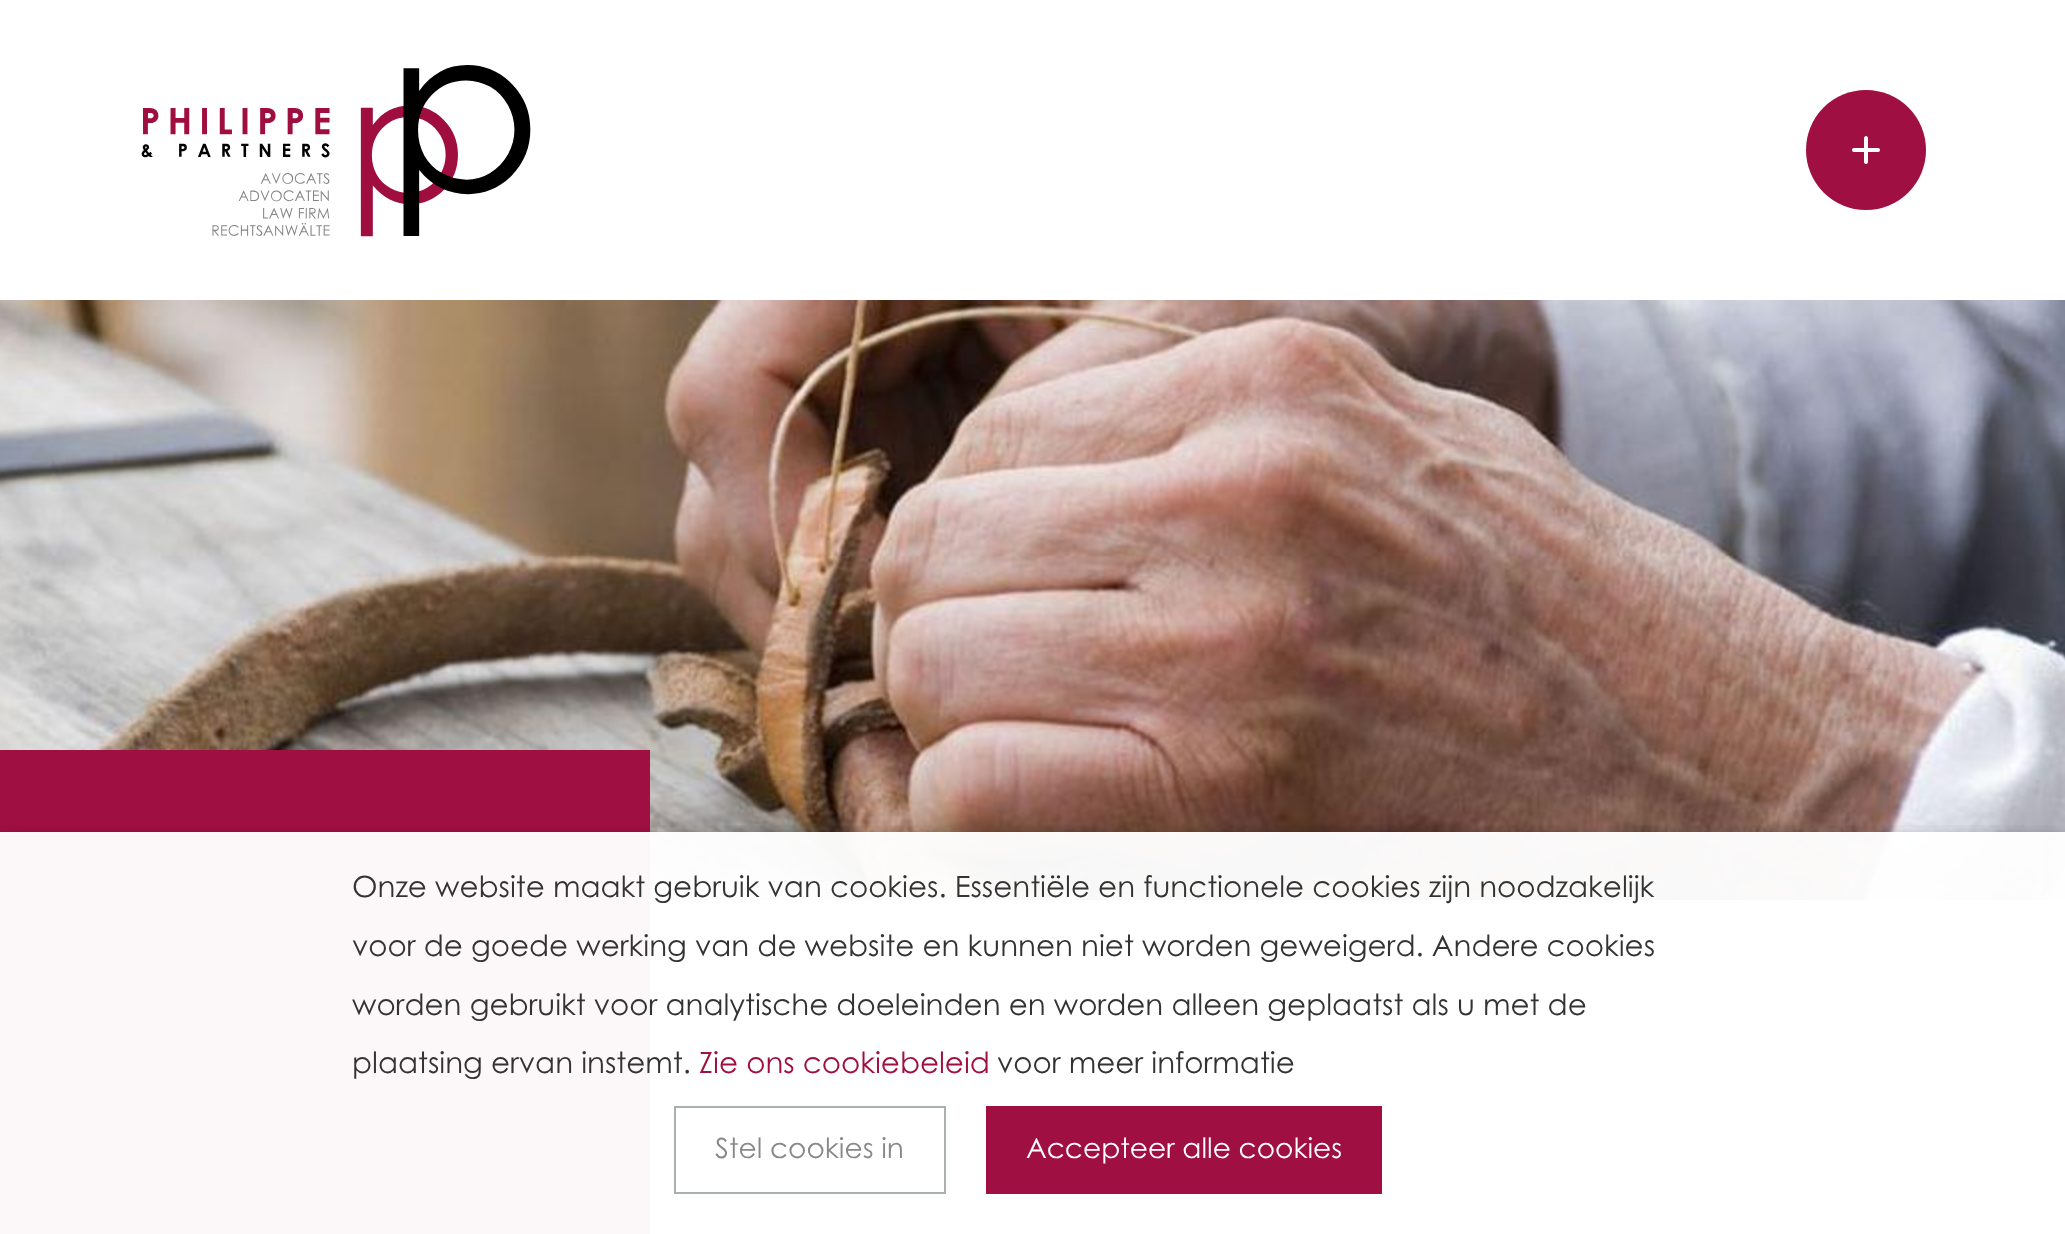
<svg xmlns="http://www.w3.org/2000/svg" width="2065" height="1234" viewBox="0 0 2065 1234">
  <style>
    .t1 { font: 29.35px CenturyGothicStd; fill: #333; }
    .t2 { font: 29.35px CenturyGothicStd; fill: #a00f41; }
    .t3 { font: 28px CenturyGothicStd; fill: #898888; }
    .t4 { font: 28px CenturyGothicStd; fill: #fff; }
  </style>
  <defs>
    <clipPath id="clip1"><rect x="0" y="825" width="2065" height="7"/></clipPath>
  </defs>
  <rect width="100%" height="100%" fill="#fff"/>
  <image x="141" y="65" width="390" height="172" href="images/1.png"/>
  <circle cx="1866" cy="150" r="60" fill="#a00f41"/>
  <path d="M1868 138V162C1868 163 1867 164 1866 164C1865 164 1864 163 1864 162V138C1864 137 1865 136 1866 136C1867 136 1868 137 1868 138Z" fill="#fff"/>
  <rect x="1852" y="148" width="28" height="4" rx="2" fill="#fff"/>
  <image x="0" y="300" width="2065" height="600" href="images/2.png"/>
  <rect x="0" y="750" width="650" height="484" fill="#a00f41"/>
  <g clip-path="url(#clip1)">
    <rect x="0" y="842" width="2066" height="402" fill="#00000080" filter="blur(10px)"/>
  </g>
  <rect x="0" y="832" width="2065" height="402" fill="#fffffff7"/>
  <text x="352" y="897" class="t1">Onze website maakt gebruik van cookies. Essentiële en functionele cookies zijn noodzakelijk</text>
  <text x="352" y="956" class="t1">voor de goede werking van de website en kunnen niet worden geweigerd. Andere cookies</text>
  <text x="352" y="1015" class="t1">worden gebruikt voor analytische doeleinden en worden alleen geplaatst als u met de</text>
  <text x="352" y="1073" class="t1">plaatsing ervan instemt.</text>
  <text x="699" y="1073" class="t2">Zie ons cookiebeleid</text>
  <text x="997" y="1073" class="t1">voor meer informatie</text>
  <rect x="675" y="1107" width="270" height="86" fill="none" stroke="#aaafaf" stroke-width="2"/>
  <text x="715" y="1158" class="t3">Stel cookies in</text>
  <rect x="986" y="1106" width="396" height="88" fill="#a00f41"/>
  <text x="1026" y="1158" class="t4">Accepteer alle cookies</text>
</svg>
